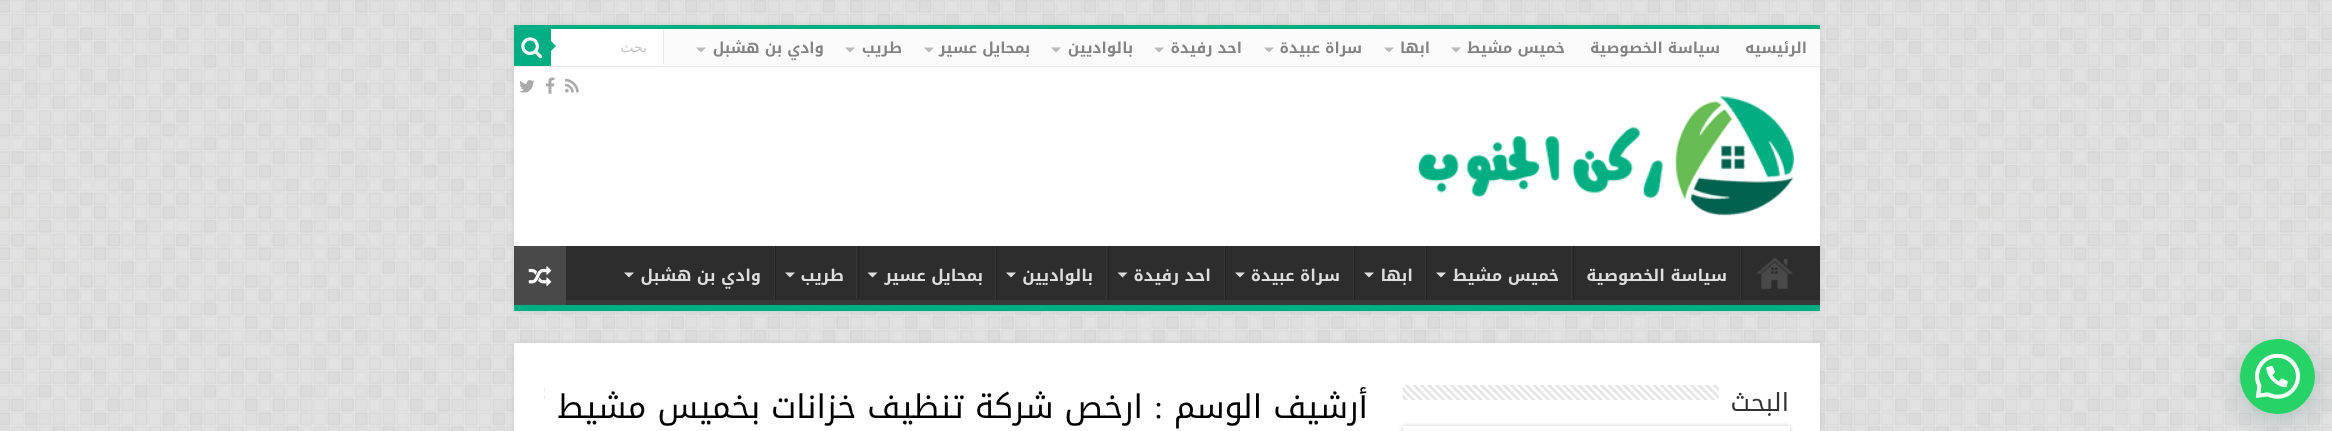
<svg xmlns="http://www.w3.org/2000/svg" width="2332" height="431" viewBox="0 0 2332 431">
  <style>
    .t1 { font: bold 15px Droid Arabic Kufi; direction: rtl; fill: #838383; }
    .t2 { font: 14px DejaVu Sans; direction: rtl; fill: #c5c5c5; }
    .t3 { font: bold 16.25px Droid Arabic Kufi; direction: rtl; fill: #ddd; }
    .t4 { font: 25px Droid Arabic Kufi; direction: rtl; fill: #333; }
    .t5 { font: 32.5px Droid Arabic Kufi; direction: rtl; fill: #000; }
    .t6 { font: 32.5px Liberation Serif; direction: rtl; fill: #000; }
  </style>
  <defs>
    <clipPath id="clip1"><rect x="514" y="246" width="1306" height="59"/></clipPath>
  </defs>
  <rect width="100%" height="100%" fill="#e0e0e0"/>
  <image x="0" y="0" width="2332" height="431" href="images/1.png"/>
  <rect x="2241" y="346" width="75" height="75" rx="37.5" fill="#075e543d" filter="blur(15px)"/>
  <circle cx="2277.5" cy="376.5" r="37.5" fill="#25d366"/>
  <image x="2255" y="354" width="45" height="45" href="images/2.png"/>
  <rect x="514" y="25" width="1306" height="286" fill="#cacaca" filter="blur(2px)"/>
  <rect x="514" y="68" width="1306" height="178" fill="#fff"/>
  <rect x="514" y="25" width="1306" height="4" fill="#00ae83"/>
  <rect x="514" y="29" width="1306" height="39" fill="#fbfbfb"/>
  <rect x="514" y="66" width="1306" height="1" fill="#ececec"/>
  <text x="1807" y="53" class="t1">الرئيسيه</text>
  <text x="1720" y="53" class="t1">سياسة الخصوصية</text>
  <text x="1565" y="53" class="t1">خميس مشيط</text>
  <path d="M1451 47.5H1461L1456 52.5Z" fill="#bbb"/>
  <text x="1430" y="53" class="t1">ابها</text>
  <path d="M1384 47.5H1394L1389 52.5Z" fill="#bbb"/>
  <text x="1362" y="53" class="t1">سراة عبيدة</text>
  <path d="M1264 47.5H1274L1269 52.5Z" fill="#bbb"/>
  <text x="1242" y="53" class="t1">احد رفيدة</text>
  <path d="M1154 47.5H1164L1159 52.5Z" fill="#bbb"/>
  <text x="1133" y="53" class="t1">بالواديين</text>
  <path d="M1051 47.5H1061L1056 52.5Z" fill="#bbb"/>
  <text x="1030" y="53" class="t1">بمحايل عسير</text>
  <path d="M924 47.5H934L929 52.5Z" fill="#bbb"/>
  <text x="902" y="53" class="t1">طريب</text>
  <path d="M845 47.5H855L850 52.5Z" fill="#bbb"/>
  <text x="824" y="53" class="t1">وادي بن هشبل</text>
  <path d="M696 47.5H706L701 52.5Z" fill="#bbb"/>
  <rect x="551" y="29" width="112" height="36" fill="#fff"/>
  <rect x="663" y="29" width="1" height="36" fill="#ececec"/>
  <text x="647" y="52" class="t2">بحث</text>
  <rect x="514" y="29" width="37" height="37" fill="#00ae83"/>
  <image x="521" y="37" width="22" height="22" href="images/3.png"/>
  <path d="M551 51V41L556 46Z" fill="#00ae83"/>
  <image x="565" y="78" width="14" height="15" href="images/4.png"/>
  <image x="545" y="77" width="10" height="17" href="images/5.png"/>
  <image x="519" y="80" width="16" height="13" href="images/6.png"/>
  <image x="1418" y="96" width="376" height="120" href="images/7.png"/>
  <rect x="566" y="246" width="1254" height="54" fill="#2d2d2d"/>
  <g clip-path="url(#clip1)">
    <path d="M390 122H1944V429H390ZM512 239H1819C1819 239 1820 239 1820 240V299C1820 299 1819 300 1819 300H512C512 300 511 299 511 299V240C511 239 512 239 512 239Z" fill="#393939" fill-rule="evenodd"/>
  </g>
  <rect x="514" y="305" width="1306" height="6" fill="#00ae83"/>
  <image x="1756" y="257" width="37" height="32" href="images/8.png"/>
  <rect x="1741" y="246" width="1" height="53" fill="#222"/>
  <rect x="1740" y="246" width="1" height="53" fill="#383838"/>
  <text x="1727" y="281" class="t3">سياسة الخصوصية</text>
  <rect x="1573" y="246" width="1" height="53" fill="#222"/>
  <rect x="1571" y="246" width="1" height="53" fill="#383838"/>
  <text x="1559" y="281" class="t3">خميس مشيط</text>
  <path d="M1436 272.5H1446L1441 277.5Z" fill="#ddd"/>
  <rect x="1426" y="246" width="1" height="53" fill="#222"/>
  <rect x="1425" y="246" width="1" height="53" fill="#383838"/>
  <text x="1413" y="281" class="t3">ابها</text>
  <path d="M1364 272.5H1374L1369 277.5Z" fill="#ddd"/>
  <rect x="1354" y="246" width="1" height="53" fill="#222"/>
  <rect x="1353" y="246" width="1" height="53" fill="#383838"/>
  <text x="1340" y="281" class="t3">سراة عبيدة</text>
  <path d="M1235 272.5H1245L1240 277.5Z" fill="#ddd"/>
  <rect x="1225" y="246" width="1" height="53" fill="#222"/>
  <rect x="1224" y="246" width="1" height="53" fill="#383838"/>
  <text x="1211" y="281" class="t3">احد رفيدة</text>
  <path d="M1117.5 272.5H1127.5L1122.5 277.5Z" fill="#ddd"/>
  <rect x="1108" y="246" width="1" height="53" fill="#222"/>
  <rect x="1106" y="246" width="1" height="53" fill="#383838"/>
  <text x="1093" y="281" class="t3">بالواديين</text>
  <path d="M1006 272.5H1016L1011 277.5Z" fill="#ddd"/>
  <rect x="996" y="246" width="1" height="53" fill="#222"/>
  <rect x="995" y="246" width="1" height="53" fill="#383838"/>
  <text x="983" y="281" class="t3">بمحايل عسير</text>
  <path d="M867.5 272.5H877.5L872.5 277.5Z" fill="#ddd"/>
  <rect x="858" y="246" width="1" height="53" fill="#222"/>
  <rect x="856" y="246" width="1" height="53" fill="#383838"/>
  <text x="844" y="281" class="t3">طريب</text>
  <path d="M785 272.5H795L790 277.5Z" fill="#ddd"/>
  <rect x="775" y="246" width="1" height="53" fill="#222"/>
  <rect x="774" y="246" width="1" height="53" fill="#383838"/>
  <text x="761" y="281" class="t3">وادي بن هشبل</text>
  <path d="M624 272.5H634L629 277.5Z" fill="#ddd"/>
  <rect x="514" y="246" width="52" height="59" fill="#494949"/>
  <image x="528" y="266" width="24" height="21" href="images/9.png"/>
  <rect x="514" y="343" width="1306" height="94" fill="#cacaca" filter="blur(2px)"/>
  <rect x="514" y="343" width="1306" height="88" fill="#fff"/>
  <text x="1789" y="411" class="t4">البحث</text>
  <image x="1402" y="385" width="317" height="15" href="images/10.png"/>
  <rect x="1403" y="426" width="387" height="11" fill="#cacaca" filter="blur(2px)"/>
  <rect x="1403" y="426" width="387" height="5" fill="#fff"/>
  <text x="1368" y="418" class="t5">أرشيف الوسم</text>
  <text x="1163" y="418" class="t6">:</text>
  <text x="1143" y="418" class="t5">ارخص شركة تنظيف خزانات بخميس مشيط</text>
  <image x="544" y="387" width="1" height="13" href="images/11.png"/>
</svg>
